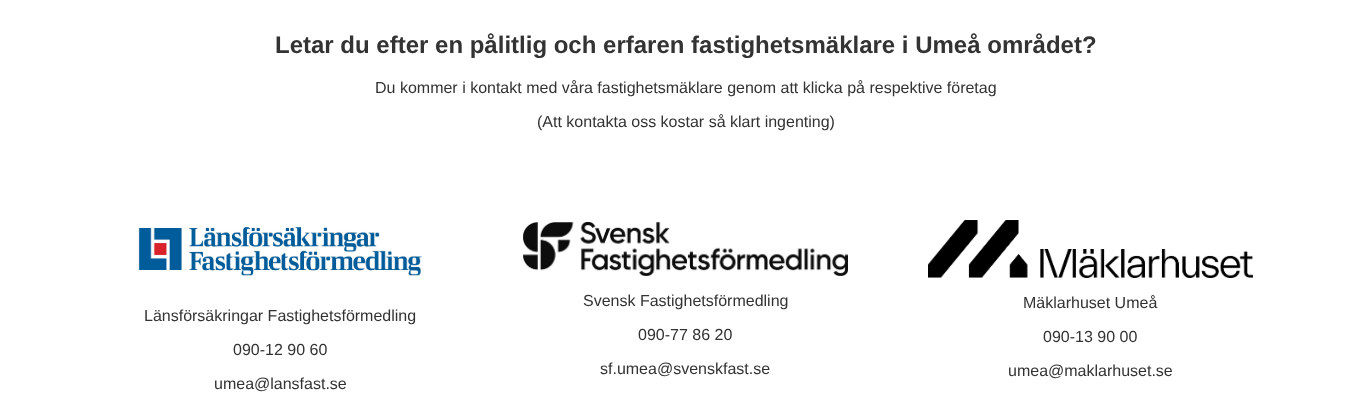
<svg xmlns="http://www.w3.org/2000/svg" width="1371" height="411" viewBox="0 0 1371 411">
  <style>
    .t1 { font: bold 24px Liberation Sans; fill: #333; }
    .t2 { font: 16px Liberation Sans; fill: #333; }
  </style>
  <rect width="100%" height="100%" fill="#fff"/>
  <text x="275" y="53" class="t1">Letar du efter en pålitlig och erfaren fastighetsmäklare i Umeå området?</text>
  <text x="375" y="93" class="t2">Du kommer i kontakt med våra fastighetsmäklare genom att klicka på respektive företag</text>
  <text x="537" y="127" class="t2">(Att kontakta oss kostar så klart ingenting)</text>
  <image x="138" y="226" width="284" height="50" href="images/1.png"/>
  <text x="144" y="321" class="t2">Länsförsäkringar Fastighetsförmedling</text>
  <text x="233" y="355" class="t2">090-12 90 60</text>
  <text x="214" y="389" class="t2">umea@lansfast.se</text>
  <image x="523" y="222" width="325" height="54" href="images/2.png"/>
  <text x="583" y="306" class="t2">Svensk Fastighetsförmedling</text>
  <text x="638" y="340" class="t2">090-77 86 20</text>
  <text x="600" y="374" class="t2">sf.umea@svenskfast.se</text>
  <image x="928" y="220" width="325" height="58" href="images/3.png"/>
  <text x="1023" y="308" class="t2">Mäklarhuset Umeå</text>
  <text x="1043" y="342" class="t2">090-13 90 00</text>
  <text x="1008" y="376" class="t2">umea@maklarhuset.se</text>
</svg>
